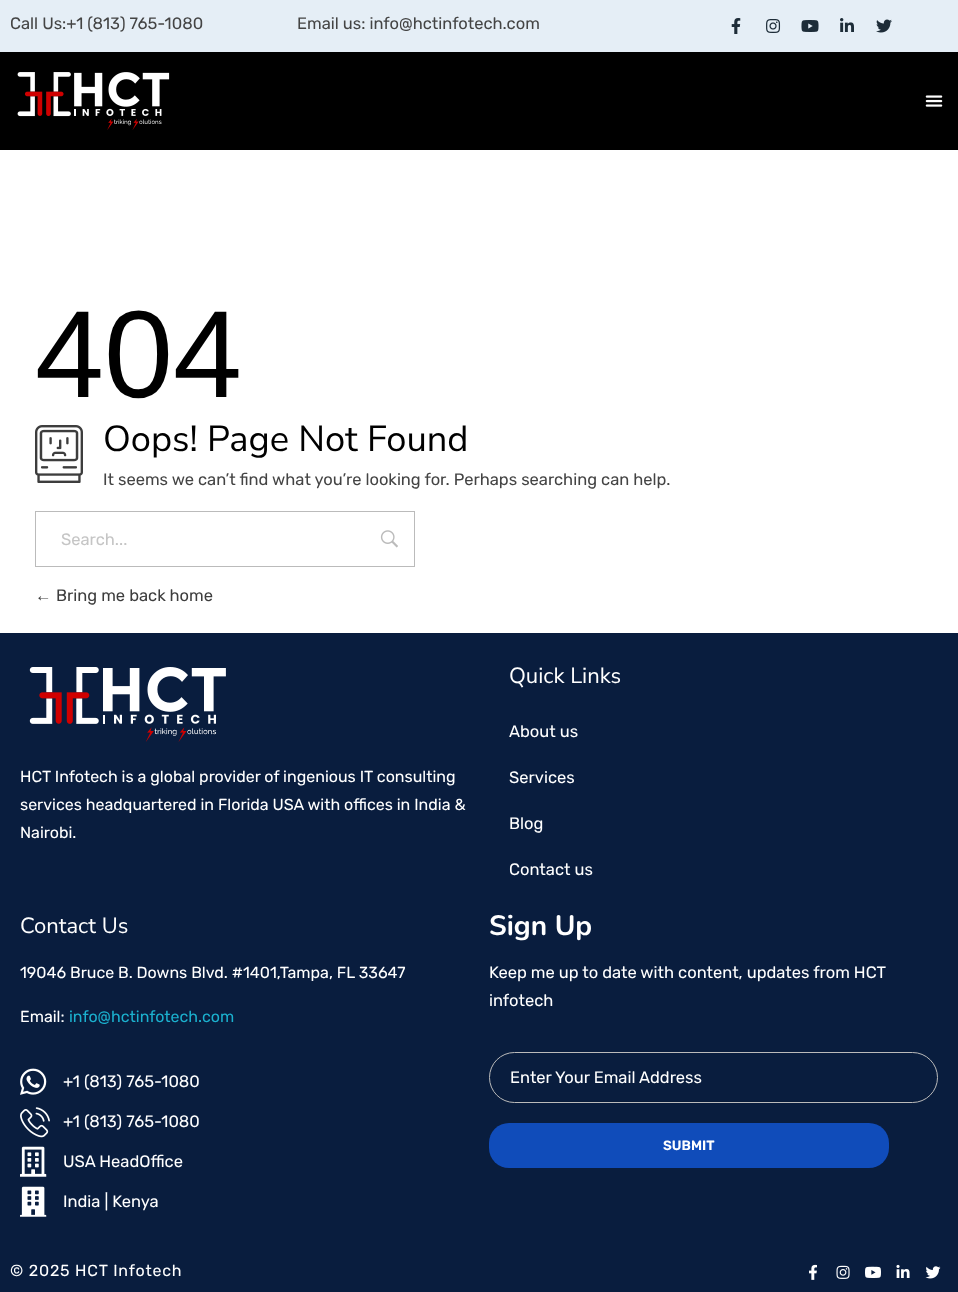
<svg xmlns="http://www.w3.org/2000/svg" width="958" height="1292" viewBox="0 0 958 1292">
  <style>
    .t1 { font: 16.5px Rubik; fill: #444; }
    .t2 { font: 124px Liberation Sans; fill: #000; }
    .t3 { font: 36.25px Nunito Sans; fill: #000; }
    .t4 { font: 16.5px Rubik; fill: #c5c5c5; }
    .t5 { font: 16.5px Liberation Sans; fill: #3d3d3d; }
    .t6 { font: 16.5px Rubik; fill: #3d3d3d; }
    .t7 { font: 16px Rubik; fill: #fff; }
    .t8 { font: 22px Nunito Sans; fill: #fff; }
    .t9 { font: 16.5px Rubik; fill: #fff; }
    .t10 { font: 16px Rubik; fill: #1bb0ce; }
    .t11 { font: bold 28px Nunito; fill: #fff; }
    .t12 { font: 600 13.5px Rubik; fill: #fff; }
    .t13 { font: 16px Rubik; letter-spacing: 0.8px; fill: #fff; }
  </style>
  <rect width="100%" height="100%" fill="#fff"/>
  <rect x="0" y="0" width="958" height="52" fill="#e5eef6"/>
  <text x="10" y="29" class="t1">Call Us:+1 (813) 765-1080</text>
  <text x="297" y="29" class="t1">Email us: info@hctinfotech.com</text>
  <image x="731" y="18" width="10" height="16" href="images/1.png"/>
  <image x="766" y="19" width="15" height="14" href="images/2.png"/>
  <image x="801" y="20" width="18" height="12" href="images/3.png"/>
  <image x="840" y="18" width="14" height="14" href="images/4.png"/>
  <image x="876" y="19" width="16" height="14" href="images/5.png"/>
  <rect x="0" y="52" width="958" height="98" fill="#000"/>
  <image x="17" y="72" width="153" height="58" href="images/6.png"/>
  <image x="925" y="95" width="18" height="12" href="images/7.png"/>
  <text x="35" y="397" class="t2">404</text>
  <image x="35" y="425" width="48" height="58" href="images/8.png"/>
  <text x="103" y="451" class="t3">Oops! Page Not Found</text>
  <text x="103" y="485" class="t1">It seems we can’t find what you’re looking for. Perhaps searching can help.</text>
  <rect x="35.5" y="511.5" width="379" height="55" fill="none" stroke="#bbb"/>
  <text x="61" y="545" class="t4">Search...</text>
  <image x="380" y="530" width="18" height="18" href="images/9.png"/>
  <text x="35" y="601" class="t5">←</text>
  <text x="56" y="601" class="t6">Bring me back home</text>
  <rect x="0" y="633" width="958" height="659" fill="#091d3e"/>
  <image x="29" y="667" width="197" height="75" href="images/10.png"/>
  <text x="20" y="782" class="t7">HCT Infotech is a global provider of ingenious IT consulting</text>
  <text x="20" y="810" class="t7">services headquartered in Florida USA with offices in India &amp;</text>
  <text x="20" y="838" class="t7">Nairobi.</text>
  <text x="509" y="683" class="t8">Quick Links</text>
  <text x="509" y="737" class="t9">About us</text>
  <text x="509" y="783" class="t9">Services</text>
  <text x="509" y="829" class="t9">Blog</text>
  <text x="509" y="875" class="t9">Contact us</text>
  <text x="20" y="933" class="t8">Contact Us</text>
  <text x="20" y="978" class="t7">19046 Bruce B. Downs Blvd. #1401,Tampa, FL 33647</text>
  <text x="20" y="1022" class="t7">Email:</text>
  <text x="69" y="1022" class="t10">info@hctinfotech.com</text>
  <image x="20" y="1068" width="27" height="27" href="images/11.png"/>
  <text x="63" y="1087" class="t9">+1 (813) 765-1080</text>
  <image x="20" y="1107" width="30" height="31" href="images/12.png"/>
  <text x="63" y="1127" class="t9">+1 (813) 765-1080</text>
  <image x="20" y="1146" width="27" height="31" href="images/13.png"/>
  <text x="63" y="1167" class="t9">USA HeadOffice</text>
  <image x="20" y="1186" width="27" height="31" href="images/14.png"/>
  <text x="63" y="1207" class="t9">India | Kenya</text>
  <text x="489" y="935" class="t11">Sign Up</text>
  <text x="489" y="978" class="t9">Keep me up to date with content, updates from HCT</text>
  <text x="489" y="1006" class="t9">infotech</text>
  <path d="M490 1077C490 1090 501 1102 514 1102H912C926 1102 937 1090 937 1077C937 1090 926 1101 912 1101H514C501 1101 490 1090 490 1077Z" fill="#081b39"/>
  <rect x="489.5" y="1052.5" width="448" height="50" rx="25" fill="none" stroke="#bbb"/>
  <text x="510" y="1083" class="t9">Enter Your Email Address</text>
  <rect x="489" y="1123" width="400" height="45" rx="20" fill="#104cba"/>
  <text x="663" y="1150" class="t12">SUBMIT</text>
  <text x="10" y="1276" class="t13">© 2025 HCT Infotech</text>
  <image x="809" y="1264" width="8" height="16" href="images/15.png"/>
  <image x="836" y="1265" width="14" height="14" href="images/16.png"/>
  <image x="865" y="1266" width="16" height="12" href="images/17.png"/>
  <image x="896" y="1264" width="14" height="14" href="images/18.png"/>
  <image x="925" y="1266" width="16" height="13" href="images/19.png"/>
</svg>
